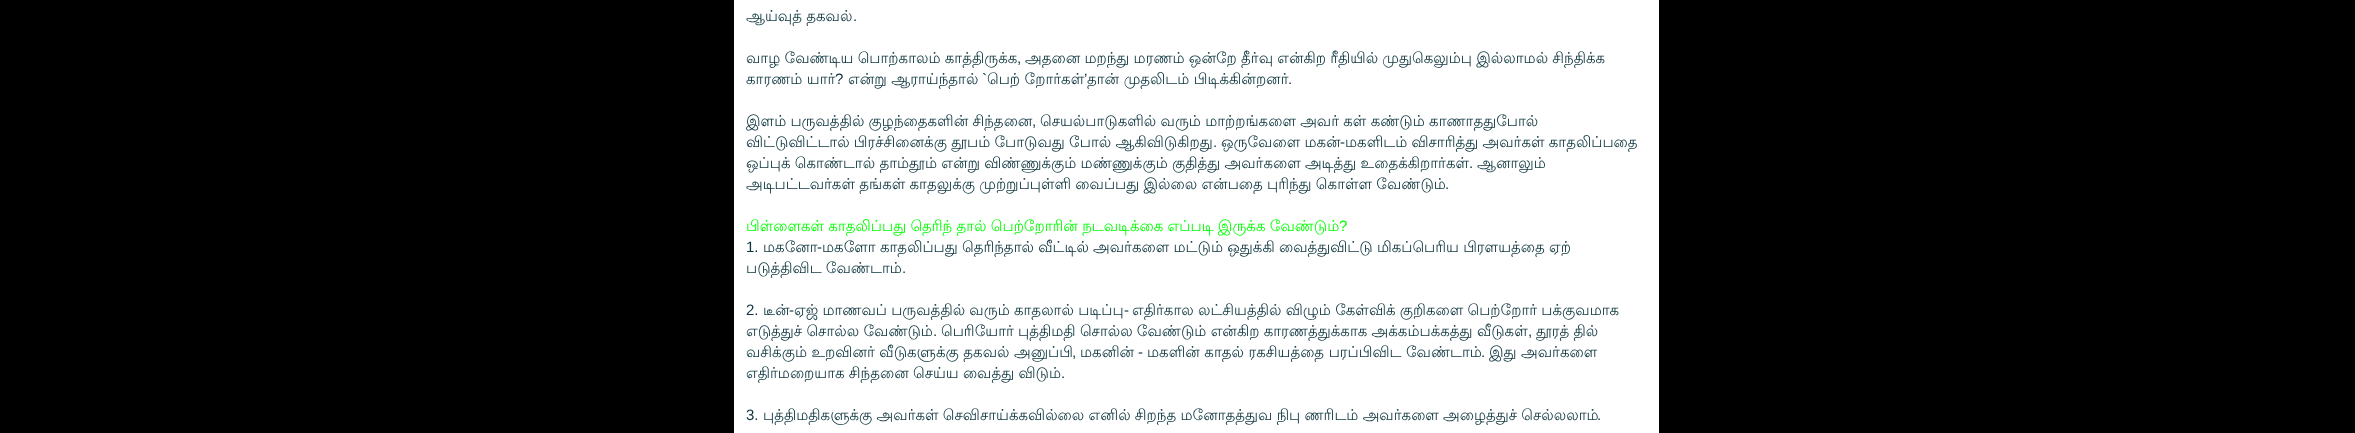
<svg xmlns="http://www.w3.org/2000/svg" width="2355" height="433" viewBox="0 0 2355 433">
  <style>
    .t1 { font: 15px Lohit Tamil; fill: #0c343d; }
    .t2 { font: 15px Liberation Sans; fill: #0c343d; }
    .t3 { font: 15px Lohit Tamil; fill: #0f0; }
    .t4 { font: 15px Liberation Sans; fill: #0f0; }
  </style>
  <rect width="100%" height="100%" fill="#000"/>
  <rect x="734" y="0" width="925" height="433" fill="#fff"/>
  <text x="746" y="21" word-spacing="-0.25" class="t1">ஆய்வுத் தகவல்</text>
  <text x="853" y="21" class="t2">.</text>
  <text x="746" y="63" word-spacing="-0.25" class="t1">வாழ வேண்டிய பொற்காலம் காத்திருக்க</text>
  <text x="1017" y="63" class="t2">,</text>
  <text x="1025" y="63" word-spacing="-0.25" class="t1">அதனை மறந்து மரணம் ஒன்றே தீர்வு என்கிற ரீதியில் முதுகெலும்பு இல்லாமல் சிந்திக்க</text>
  <text x="746" y="84" class="t1">காரணம் யார்</text>
  <text x="835" y="84" class="t2">?</text>
  <text x="848" y="84" class="t1">என்று ஆராய்ந்தால்</text>
  <text x="982" y="84" class="t2">`</text>
  <text x="987" y="84" class="t1">பெற் றோர்கள்</text>
  <text x="1084" y="84" class="t2">’</text>
  <text x="1087" y="84" class="t1">தான் முதலிடம் பிடிக்கின்றனர்</text>
  <text x="1288" y="84" class="t2">.</text>
  <text x="746" y="126" word-spacing="-0.25" class="t1">இளம் பருவத்தில் குழந்தைகளின் சிந்தனை</text>
  <text x="1032" y="126" class="t2">,</text>
  <text x="1040" y="126" word-spacing="-0.25" class="t1">செயல்பாடுகளில் வரும் மாற்றங்களை அவர் கள் கண்டும் காணாததுபோல்</text>
  <text x="746" y="147" word-spacing="-0.25" class="t1">விட்டுவிட்டால் பிரச்சினைக்கு தூபம் போடுவது போல் ஆகிவிடுகிறது</text>
  <text x="1221" y="147" word-spacing="-0.25" class="t1">ஒருவேளை மகன்</text>
  <text x="1340" y="147" class="t2">-</text>
  <text x="1345" y="147" word-spacing="-0.25" class="t1">மகளிடம் விசாரித்து அவர்கள் காதலிப்பதை</text>
  <text x="1213" y="147" class="t2">.</text>
  <text x="746" y="168" word-spacing="-0.25" class="t1">ஒப்புக் கொண்டால் தாம்தூம் என்று விண்ணுக்கும் மண்ணுக்கும் குதித்து அவர்களை அடித்து உதைக்கிறார்கள்</text>
  <text x="1469" y="168" class="t2">.</text>
  <text x="1477" y="168" class="t1">ஆனாலும்</text>
  <text x="746" y="189" word-spacing="-0.25" class="t1">அடிபட்டவர்கள் தங்கள் காதலுக்கு முற்றுப்புள்ளி வைப்பது இல்லை என்பதை புரிந்து கொள்ள வேண்டும்</text>
  <text x="1445" y="189" class="t2">.</text>
  <text x="746" y="231" word-spacing="-0.25" class="t3">பிள்ளைகள் காதலிப்பது தெரிந் தால் பெற்றோரின் நடவடிக்கை எப்படி இருக்க வேண்டும்</text>
  <text x="1339" y="231" class="t4">?</text>
  <text x="746" y="252" class="t2">1.</text>
  <text x="763" y="252" class="t1">மகனோ</text>
  <text x="817" y="252" class="t2">-</text>
  <text x="822" y="252" word-spacing="-0.25" class="t1">மகளோ காதலிப்பது தெரிந்தால் வீட்டில் அவர்களை மட்டும் ஒதுக்கி வைத்துவிட்டு மிகப்பெரிய பிரளயத்தை ஏற்</text>
  <text x="746" y="273" word-spacing="-0.25" class="t1">படுத்திவிட வேண்டாம்</text>
  <text x="902" y="273" class="t2">.</text>
  <text x="746" y="315" class="t2">2.</text>
  <text x="763" y="315" class="t1">டீன்</text>
  <text x="789" y="315" class="t2">-</text>
  <text x="794" y="315" word-spacing="-0.25" class="t1">ஏஜ் மாணவப் பருவத்தில் வரும் காதலால் படிப்பு</text>
  <text x="1124" y="315" class="t2">-</text>
  <text x="1132" y="315" word-spacing="-0.25" class="t1">எதிர்கால லட்சியத்தில் விழும் கேள்விக் குறிகளை பெற்றோர் பக்குவமாக</text>
  <text x="746" y="336" word-spacing="-0.25" class="t1">எடுத்துச் சொல்ல வேண்டும்</text>
  <text x="933" y="336" class="t2">.</text>
  <text x="941" y="336" word-spacing="-0.25" class="t1">பெரியோர் புத்திமதி சொல்ல வேண்டும் என்கிற காரணத்துக்காக அக்கம்பக்கத்து வீடுகள்</text>
  <text x="1528" y="336" class="t2">,</text>
  <text x="1536" y="336" word-spacing="-0.25" class="t1">தூரத் தில்</text>
  <text x="746" y="357" class="t1">வசிக்கும் உறவினர் வீடுகளுக்கு தகவல் அனுப்பி</text>
  <text x="1080" y="357" class="t1">மகனின்</text>
  <text x="1138" y="357" class="t2">-</text>
  <text x="1147" y="357" class="t1">மகளின் காதல் ரகசியத்தை பரப்பிவிட வேண்டாம்</text>
  <text x="1489" y="357" class="t1">இது அவர்களை</text>
  <text x="1072" y="357" class="t2">,</text>
  <text x="1481" y="357" class="t2">.</text>
  <text x="746" y="378" word-spacing="-0.25" class="t1">எதிர்மறையாக சிந்தனை செய்ய வைத்து விடும்</text>
  <text x="1061" y="378" class="t2">.</text>
  <text x="746" y="420" class="t2">3.</text>
  <text x="763" y="420" word-spacing="-0.25" class="t1">புத்திமதிகளுக்கு அவர்கள் செவிசாய்க்கவில்லை எனில் சிறந்த மனோதத்துவ நிபு ணரிடம் அவர்களை அழைத்துச் செல்லலாம்</text>
  <text x="1597" y="420" class="t2">.</text>
</svg>
